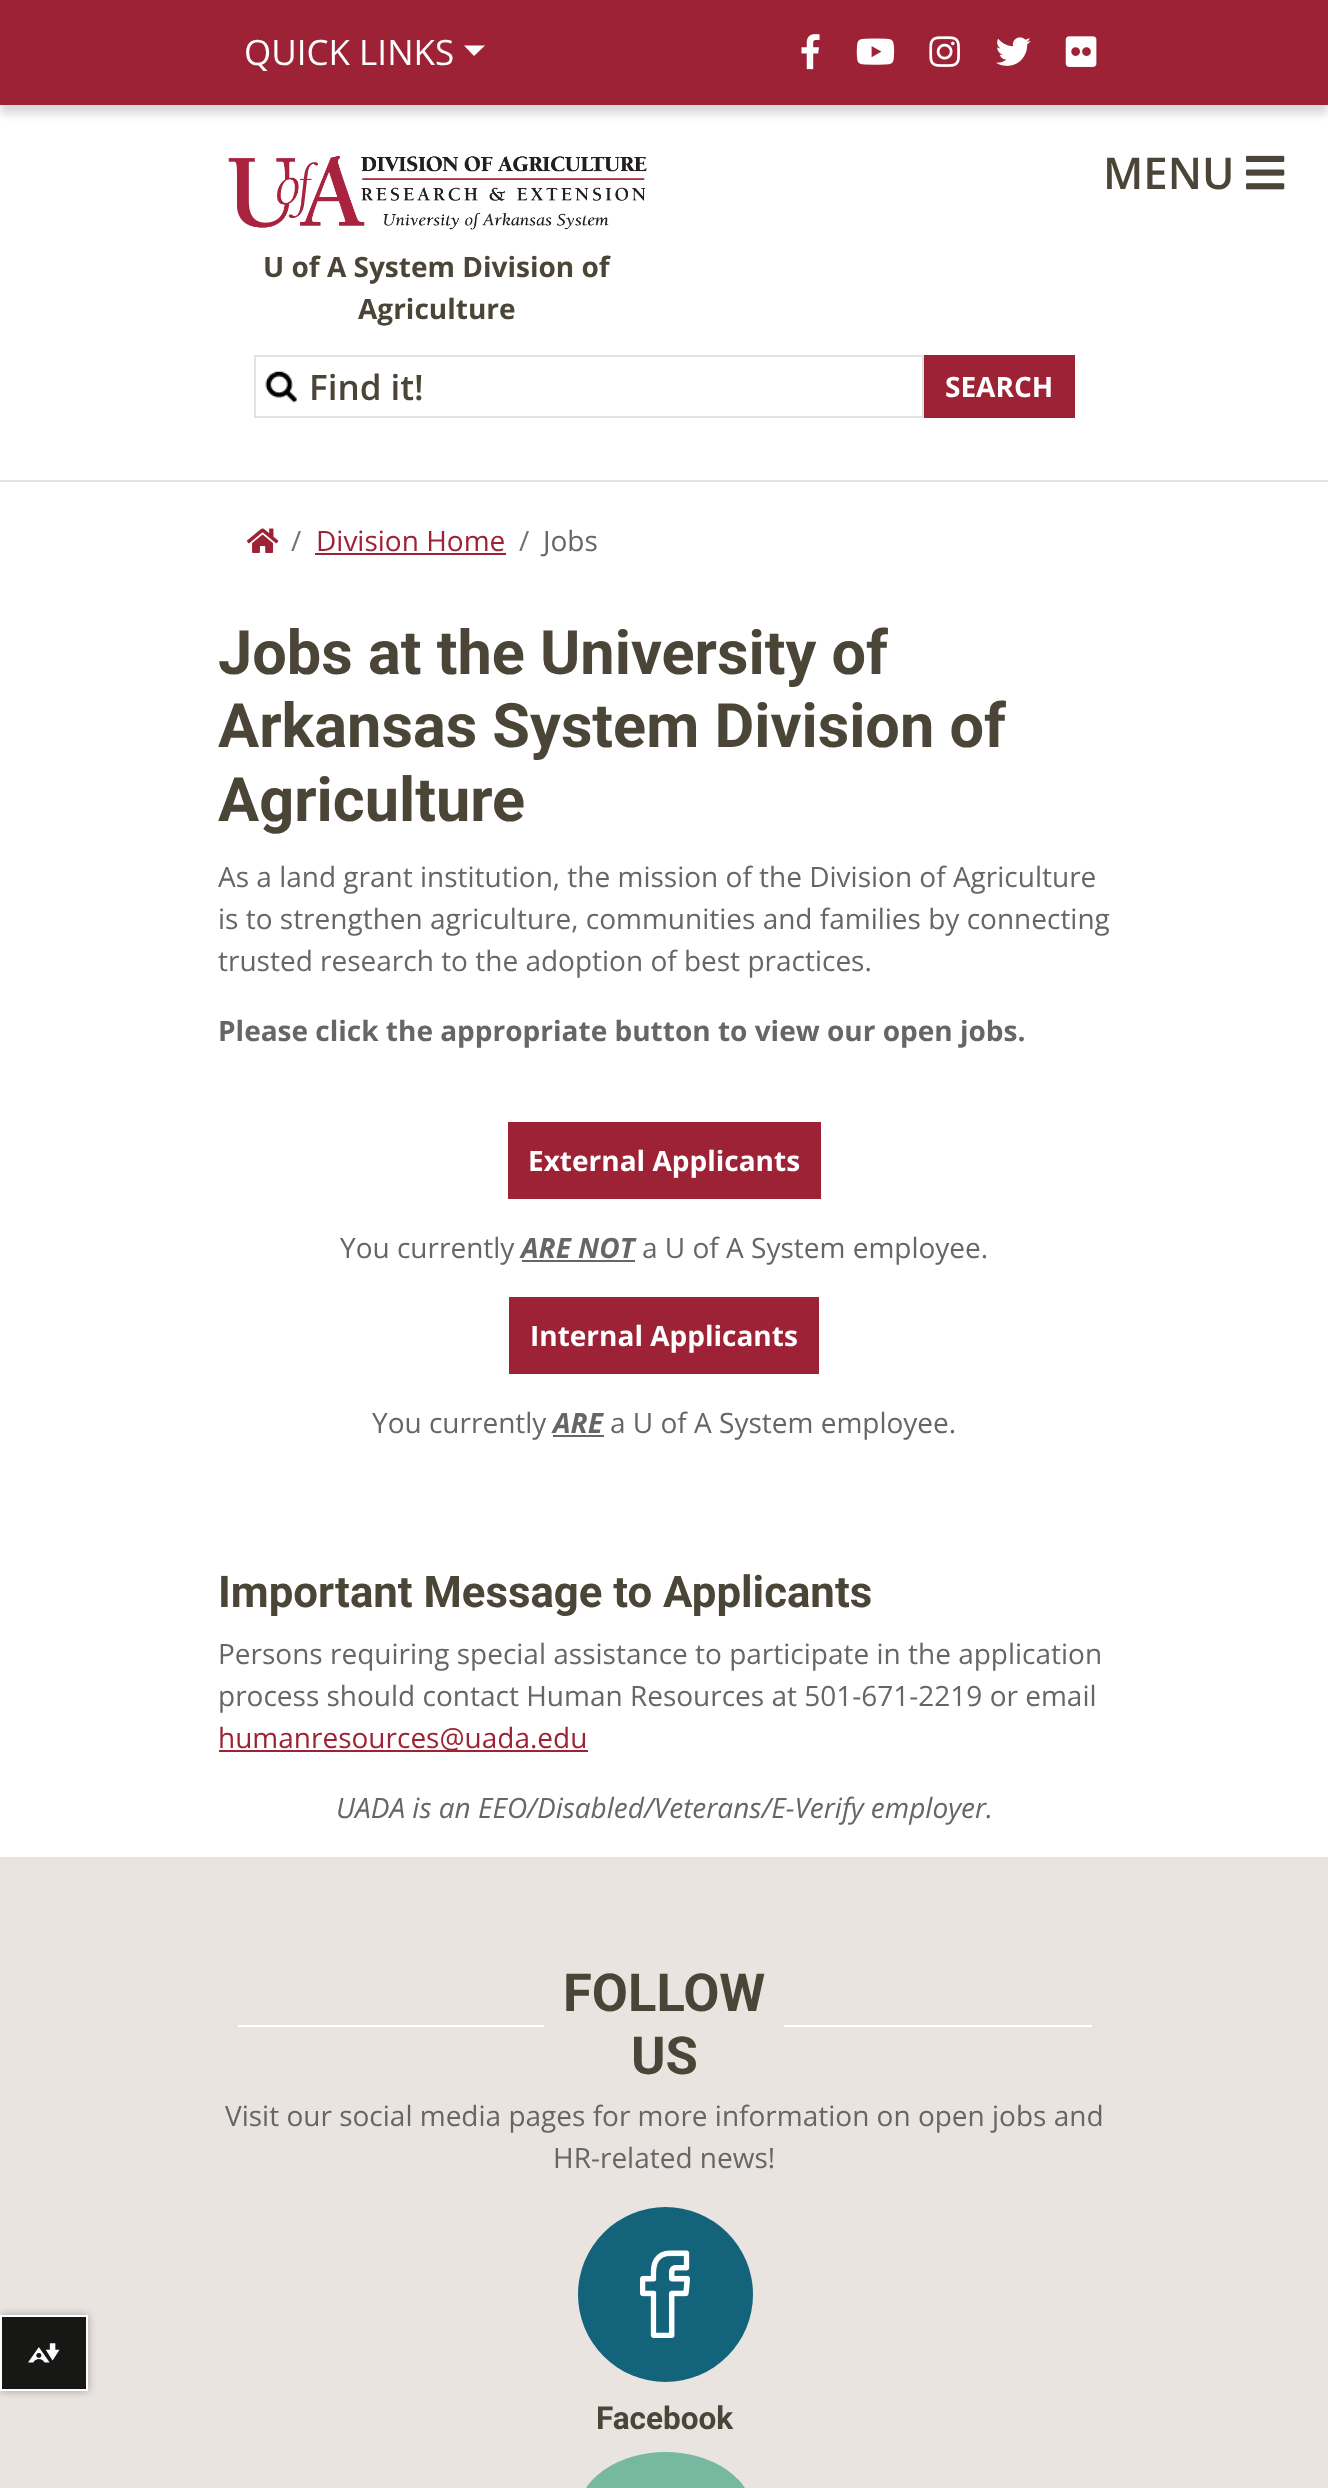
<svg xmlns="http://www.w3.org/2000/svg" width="1328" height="2488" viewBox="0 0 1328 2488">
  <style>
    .t1 { font: 35px Open Sans; fill: #fff; }
    .t2 { font: 600 43.75px Open Sans; fill: #4b4538; }
    .t3 { font: bold 28px Open Sans; fill: #4b4538; }
    .t4 { font: 600 35px Open Sans; fill: #4b4538; }
    .t5 { font: bold 28px Open Sans; fill: #fff; }
    .t6 { font: 28px Open Sans; fill: #6c757d; }
    .t7 { font: 28px Open Sans; fill: #9d2235; }
    .t8 { font: 28px Open Sans; fill: #666; }
    .t9 { font: bold 61.25px Roboto; fill: #4b4538; }
    .t10 { font: bold 28px Open Sans; fill: #666; }
    .t11 { font: italic bold 28px Open Sans; fill: #666; }
    .t12 { font: bold 43.75px Roboto; fill: #4b4538; }
    .t13 { font: italic 28px Open Sans; fill: #666; }
    .t14 { font: bold 52.5px Roboto; fill: #4b4538; }
    .t15 { font: bold 31.5px Roboto; fill: #4b4538; }
  </style>
  <defs>
    <clipPath id="clip1"><path d="M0 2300H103V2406H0ZM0 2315H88V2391H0Z" clip-rule="evenodd"/></clipPath>
  </defs>
  <rect width="100%" height="100%" fill="#fff"/>
  <rect x="0" y="1857" width="1328" height="631" fill="#eae4e1"/>
  <g clip-path="url(#clip1)">
    <rect x="0" y="2315" width="88" height="76" fill="#0000004d" filter="blur(4.5px)"/>
  </g>
  <rect x="1" y="2316" width="86" height="74" fill="#000000e6" stroke="#fff" stroke-width="2"/>
  <image x="28" y="2343" width="32" height="20" href="images/1.png"/>
  <rect x="0" y="480" width="1328" height="2" fill="#e1e3df"/>
  <rect x="0" y="9" width="1328" height="105" fill="#00000026" filter="blur(4.5px)"/>
  <rect x="0" y="0" width="1328" height="105" fill="#9d2235"/>
  <text x="244" y="65" class="t1">QUICK LINKS</text>
  <path d="M464 45.5H485L474 56Z" fill="#fff"/>
  <image x="801" y="34" width="19" height="36" href="images/2.png"/>
  <image x="856" y="38" width="39" height="27" href="images/3.png"/>
  <image x="929" y="36" width="31" height="31" href="images/4.png"/>
  <image x="996" y="37" width="35" height="29" href="images/5.png"/>
  <image x="1065" y="36" width="32" height="31" href="images/6.png"/>
  <text x="1103" y="189" class="t2">MENU</text>
  <image x="1246" y="155" width="39" height="35" href="images/7.png"/>
  <image x="228" y="155" width="419" height="75" href="images/8.png"/>
  <text x="263" y="277" class="t3">U of A System Division of</text>
  <text x="358" y="319" class="t3">Agriculture</text>
  <image x="265" y="371" width="32" height="32" href="images/9.png"/>
  <rect x="255" y="356" width="668" height="61" fill="none" stroke="#e1e3df" stroke-width="2"/>
  <text x="309" y="400" class="t4">Find it!</text>
  <rect x="924" y="355" width="151" height="63" fill="#9d2235"/>
  <text x="945" y="397" class="t5">SEARCH</text>
  <image x="246" y="528" width="33" height="25" href="images/10.png"/>
  <text x="291" y="551" class="t6">/</text>
  <text x="316" y="551" class="t7">Division Home</text>
  <rect x="315" y="553" width="191" height="2" fill="#9d2235"/>
  <text x="519" y="551" class="t6">/</text>
  <text x="543" y="551" class="t8">Jobs</text>
  <text x="218" y="674" class="t9">Jobs at the University of</text>
  <text x="218" y="747" class="t9">Arkansas System Division of</text>
  <text x="218" y="821" class="t9">Agriculture</text>
  <text x="218" y="887" class="t8">As a land grant institution, the mission of the Division of Agriculture</text>
  <text x="218" y="929" class="t8">is to strengthen agriculture, communities and families by connecting</text>
  <text x="218" y="971" class="t8">trusted research to the adoption of best practices.</text>
  <text x="218" y="1041" class="t10">Please click the appropriate button to view our open jobs.</text>
  <rect x="508" y="1122" width="313" height="77" fill="#9d2235"/>
  <text x="528" y="1171" class="t5">External Applicants</text>
  <text x="340" y="1258" class="t8">You currently</text>
  <text x="521" y="1258" class="t11">ARE NOT</text>
  <rect x="522" y="1260" width="113" height="2" fill="#666"/>
  <text x="642" y="1258" class="t8">a U of A System employee.</text>
  <rect x="509" y="1297" width="310" height="77" fill="#9d2235"/>
  <text x="530" y="1346" class="t5">Internal Applicants</text>
  <text x="372" y="1433" class="t8">You currently</text>
  <text x="553" y="1433" class="t11">ARE</text>
  <rect x="553" y="1435" width="51" height="2" fill="#666"/>
  <text x="610" y="1433" class="t8">a U of A System employee.</text>
  <text x="218" y="1607" class="t12">Important Message to Applicants</text>
  <text x="218" y="1664" class="t8">Persons requiring special assistance to participate in the application</text>
  <text x="218" y="1706" class="t8">process should contact Human Resources at 501-671-2219 or email</text>
  <rect x="219" y="1750" width="369" height="2" fill="#9d2235"/>
  <text x="218" y="1748" class="t7">humanresources@uada.edu</text>
  <text x="336" y="1818" class="t13">UADA is an EEO/Disabled/Veterans/E-Verify employer.</text>
  <text x="563" y="2011" class="t14">FOLLOW</text>
  <rect x="238" y="2025" width="306" height="2" fill="#fff"/>
  <rect x="784" y="2025" width="308" height="2" fill="#fff"/>
  <text x="631" y="2074" class="t14">US</text>
  <text x="225" y="2126" class="t8">Visit our social media pages for more information on open jobs and</text>
  <text x="553" y="2168" class="t8">HR-related news!</text>
  <circle cx="665.5" cy="2294.5" r="87.5" fill="#13647a"/>
  <image x="640" y="2250" width="50" height="88" href="images/11.png"/>
  <text x="596" y="2429" class="t15">Facebook</text>
  <rect x="578" y="2452" width="175" height="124" rx="87.5" fill="#77b8a0"/>
</svg>
